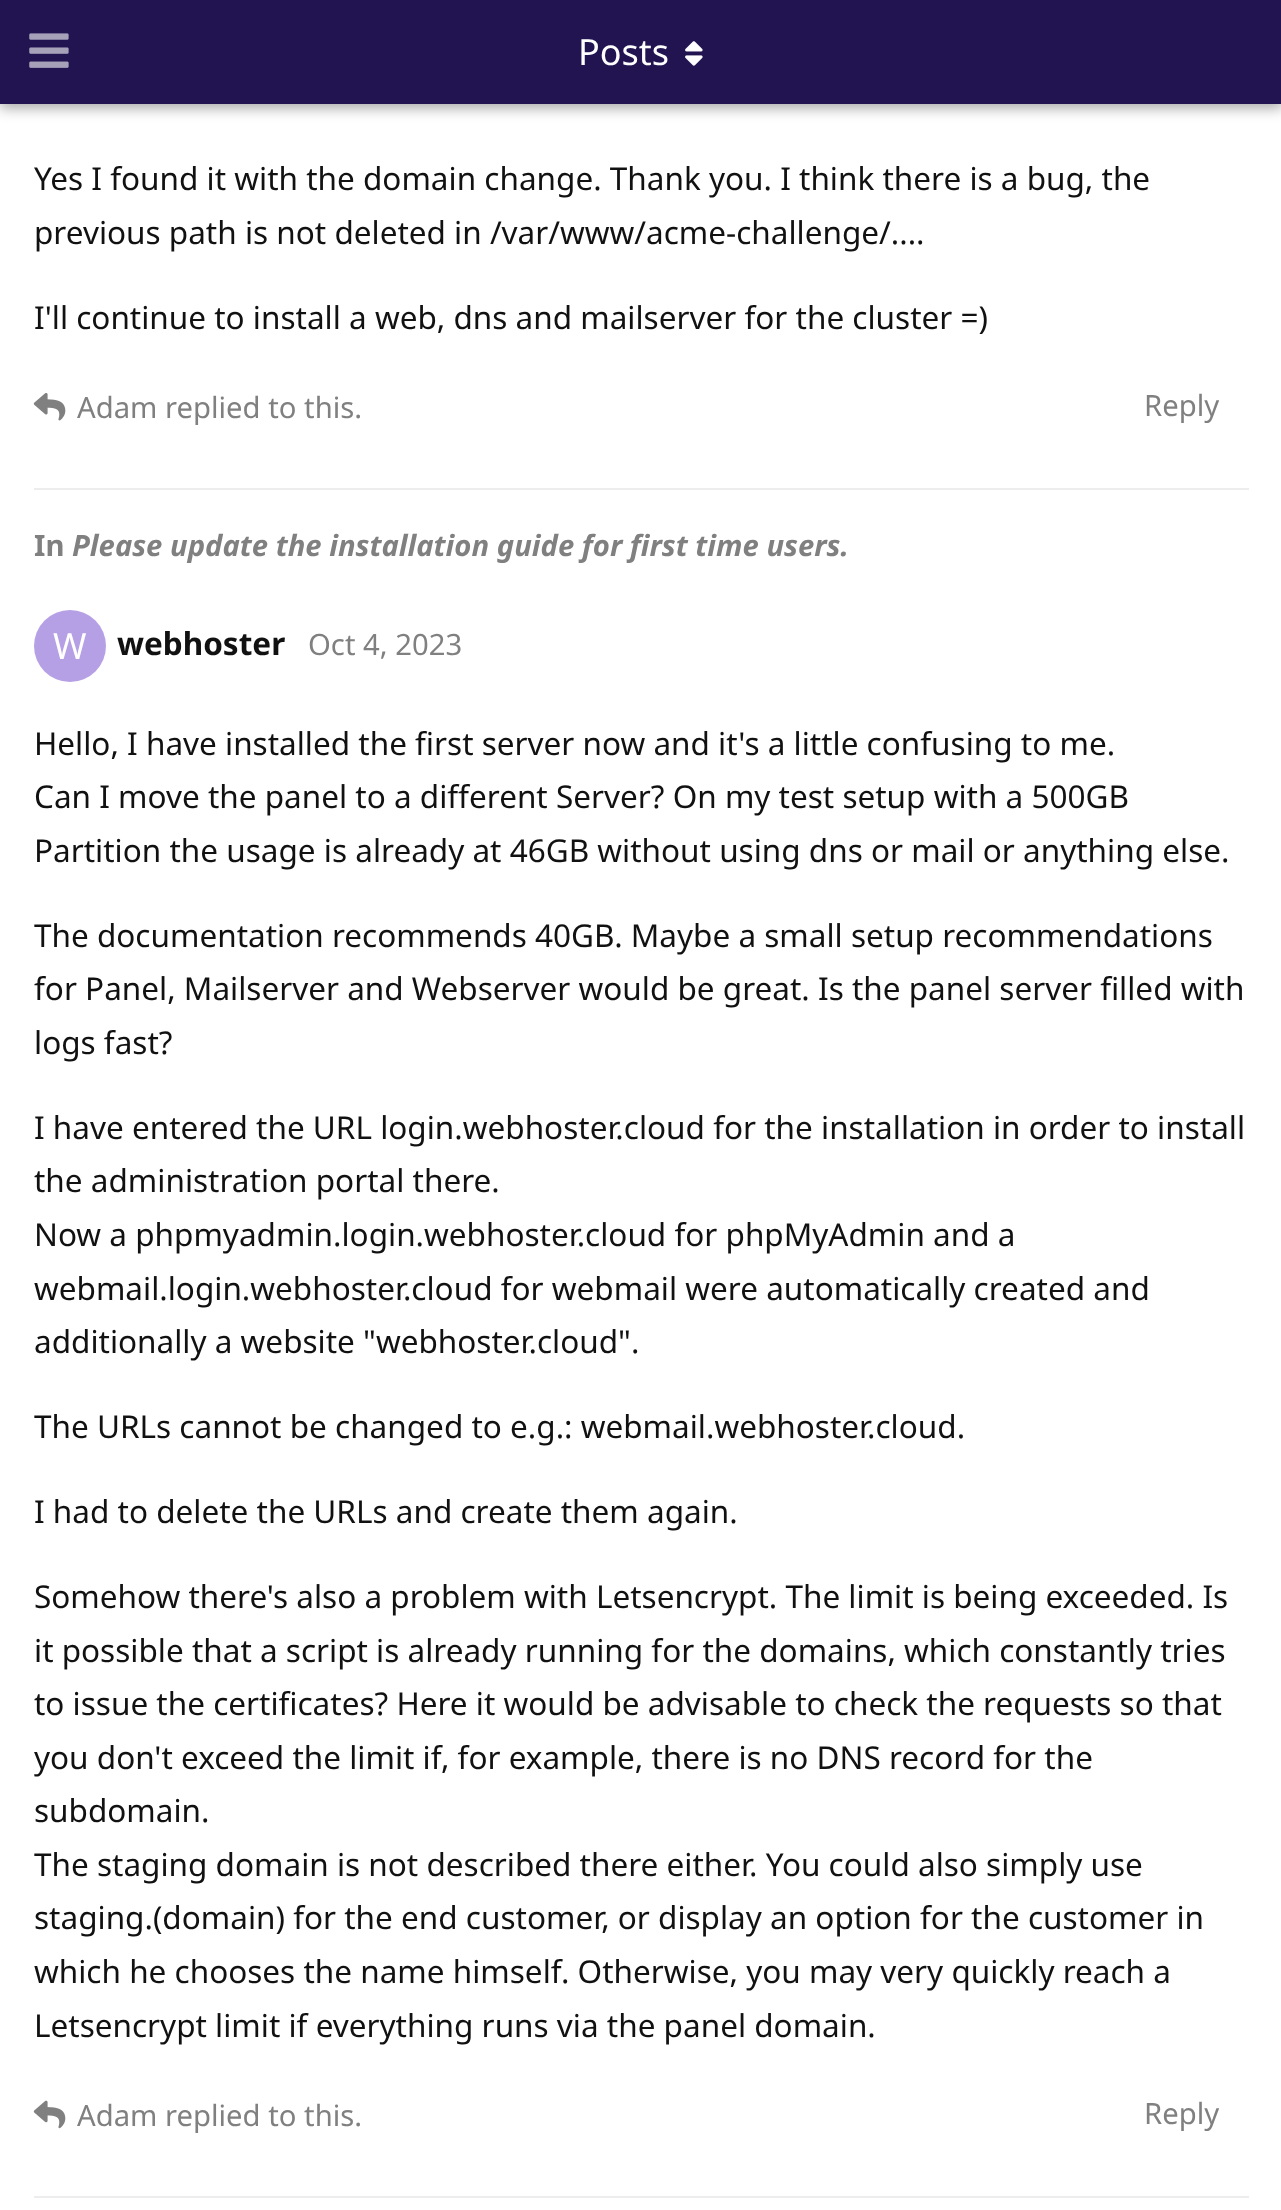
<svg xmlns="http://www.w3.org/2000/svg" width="1281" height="2210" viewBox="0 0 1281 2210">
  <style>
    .t1 { font: 36px Noto Sans; fill: #fff; }
    .t2 { font: 31.5px Noto Sans; fill: #111; }
    .t3 { font: 29.25px Noto Sans; fill: #808080; }
    .t4 { font: bold 29.25px Noto Sans; fill: #808080; }
    .t5 { font: italic bold 29.25px Noto Sans; fill: #808080; }
    .t6 { font: bold 31.5px Noto Sans; fill: #111; }
  </style>
  <rect width="100%" height="100%" fill="#fff"/>
  <rect x="0" y="5" width="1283" height="103" fill="#00000059" filter="blur(7px)"/>
  <rect x="0" y="0" width="1281" height="104" fill="#211451"/>
  <image x="29" y="33" width="40" height="35" href="images/1.png"/>
  <text x="578" y="65" class="t1">Posts</text>
  <image x="685" y="41" width="18" height="25" href="images/2.png"/>
  <rect x="34" y="488" width="1215" height="2" fill="#ededed"/>
  <text x="34" y="190" class="t2">Yes I found it with the domain change. Thank you. I think there is a bug, the</text>
  <text x="34" y="244" class="t2">previous path is not deleted in /var/www/acme-challenge/....</text>
  <text x="34" y="329" class="t2">I'll continue to install a web, dns and mailserver for the cluster =)</text>
  <image x="33" y="393" width="33" height="28" href="images/3.png"/>
  <text x="77" y="418" class="t3">Adam replied to this.</text>
  <text x="1144" y="416" class="t3">Reply</text>
  <rect x="34" y="2196" width="1215" height="2" fill="#ededed"/>
  <text x="34" y="556" class="t4">In</text>
  <text x="72" y="556" class="t5">Please update the installation guide for first time users.</text>
  <circle cx="70" cy="646" r="36" fill="#b6a0e5"/>
  <text x="53" y="659" class="t1">W</text>
  <text x="117" y="655" class="t6">webhoster</text>
  <text x="308" y="655" class="t3">Oct 4, 2023</text>
  <text x="34" y="755" class="t2">Hello, I have installed the first server now and it's a little confusing to me.</text>
  <text x="34" y="808" class="t2">Can I move the panel to a different Server? On my test setup with a 500GB</text>
  <text x="34" y="862" class="t2">Partition the usage is already at 46GB without using dns or mail or anything else.</text>
  <text x="34" y="947" class="t2">The documentation recommends 40GB. Maybe a small setup recommendations</text>
  <text x="34" y="1000" class="t2">for Panel, Mailserver and Webserver would be great. Is the panel server filled with</text>
  <text x="34" y="1054" class="t2">logs fast?</text>
  <text x="34" y="1139" class="t2">I have entered the URL login.webhoster.cloud for the installation in order to install</text>
  <text x="34" y="1192" class="t2">the administration portal there.</text>
  <text x="34" y="1246" class="t2">Now a phpmyadmin.login.webhoster.cloud for phpMyAdmin and a</text>
  <text x="34" y="1300" class="t2">webmail.login.webhoster.cloud for webmail were automatically created and</text>
  <text x="34" y="1353" class="t2">additionally a website "webhoster.cloud".</text>
  <text x="34" y="1438" class="t2">The URLs cannot be changed to e.g.: webmail.webhoster.cloud.</text>
  <text x="34" y="1523" class="t2">I had to delete the URLs and create them again.</text>
  <text x="34" y="1608" class="t2">Somehow there's also a problem with Letsencrypt. The limit is being exceeded. Is</text>
  <text x="34" y="1662" class="t2">it possible that a script is already running for the domains, which constantly tries</text>
  <text x="34" y="1715" class="t2">to issue the certificates? Here it would be advisable to check the requests so that</text>
  <text x="34" y="1769" class="t2">you don't exceed the limit if, for example, there is no DNS record for the</text>
  <text x="34" y="1822" class="t2">subdomain.</text>
  <text x="34" y="1876" class="t2">The staging domain is not described there either. You could also simply use</text>
  <text x="34" y="1929" class="t2">staging.(domain) for the end customer, or display an option for the customer in</text>
  <text x="34" y="1983" class="t2">which he chooses the name himself. Otherwise, you may very quickly reach a</text>
  <text x="34" y="2037" class="t2">Letsencrypt limit if everything runs via the panel domain.</text>
  <image x="33" y="2100" width="33" height="29" href="images/4.png"/>
  <text x="77" y="2126" class="t3">Adam replied to this.</text>
  <text x="1144" y="2124" class="t3">Reply</text>
</svg>
